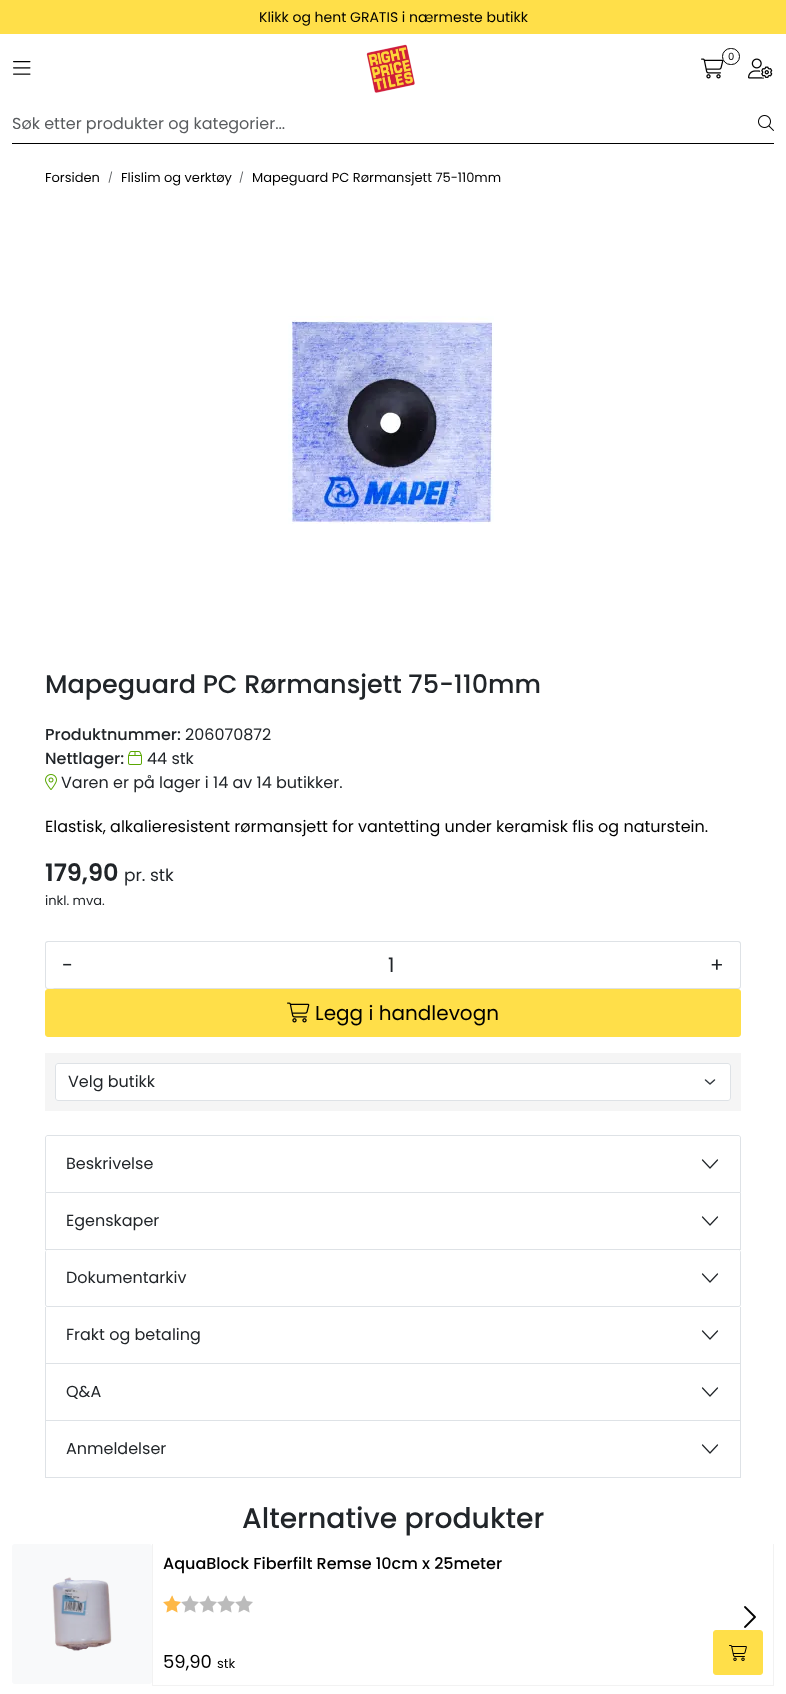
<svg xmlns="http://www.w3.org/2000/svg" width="786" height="1694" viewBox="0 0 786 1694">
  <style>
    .t1 { font: 14px Poppins; fill: #000; }
    .t2 { font: 10px Poppins; fill: #000; }
    .t3 { font: 16px Poppins; fill: #595c5f; }
    .t4 { font: 13px Poppins; fill: #000; }
    .t5 { font: 10px Poppins; fill: #595c5f; }
    .t6 { font: 500 25.5px Poppins; fill: #212529; }
    .t7 { font: 500 16px Poppins; fill: #212529; }
    .t8 { font: 16px Poppins; fill: #212529; }
    .t9 { font: 16px Poppins; fill: #000; }
    .t10 { font: 600 24px Poppins; fill: #212529; }
    .t11 { font: 17px Poppins; fill: #212529; }
    .t12 { font: 13px Poppins; fill: #212529; }
    .t13 { font: 20px Poppins; fill: #212529; }
    .t14 { font: 20px Poppins; fill: #000; }
    .t15 { font: 500 28.25px Poppins; fill: #212529; }
    .t16 { font: 500 16px Poppins; fill: #000; }
    .t17 { font: 18px Poppins; fill: #000; }
  </style>
  <rect width="100%" height="100%" fill="#fff"/>
  <rect x="0" y="0" width="786" height="34" fill="#ffdf49"/>
  <text x="259" y="22" class="t1">Klikk og hent GRATIS i nærmeste butikk</text>
  <image x="366" y="44" width="49" height="49" href="images/1.png"/>
  <image x="701" y="58" width="23" height="21" href="images/2.png"/>
  <rect x="722.5" y="48.5" width="17" height="16" rx="8" fill="#fff" stroke="#000"/>
  <text x="728" y="60" class="t2">0</text>
  <image x="748" y="58" width="25" height="21" href="images/3.png"/>
  <image x="13" y="61" width="18" height="14" href="images/4.png"/>
  <rect x="12" y="143" width="762" height="1" fill="#000"/>
  <text x="12" y="129" class="t3">Søk etter produkter og kategorier...</text>
  <image x="758" y="115" width="16" height="16" href="images/5.png"/>
  <text x="45" y="182" class="t4">Forsiden</text>
  <text x="108" y="181" class="t5">/</text>
  <text x="121" y="182" class="t4">Flislim og verktøy</text>
  <text x="239" y="181" class="t5">/</text>
  <text x="252" y="182" class="t4">Mapeguard PC Rørmansjett 75-110mm</text>
  <image x="288" y="316" width="206" height="208" href="images/6.png"/>
  <text x="45" y="693" class="t6">Mapeguard PC Rørmansjett 75-110mm</text>
  <text x="45" y="740" class="t7">Produktnummer:</text>
  <text x="185" y="740" class="t8">206070872</text>
  <text x="45" y="764" class="t7">Nettlager:</text>
  <image x="128" y="751" width="14" height="14" href="images/7.png"/>
  <text x="147" y="764" class="t8">44 stk</text>
  <image x="45" y="774" width="12" height="16" href="images/8.png"/>
  <text x="61" y="788" class="t8">Varen er på lager i 14 av 14 butikker.</text>
  <text x="45" y="832" class="t9">Elastisk, alkalieresistent rørmansjett for vantetting under keramisk flis og naturstein.</text>
  <text x="45" y="881" class="t10">179,90</text>
  <text x="124" y="881" class="t11">pr. stk</text>
  <text x="45" y="905" class="t12">inkl. mva.</text>
  <rect x="88" y="941" width="607" height="1" fill="#dee2e6"/>
  <rect x="88" y="988" width="607" height="1" fill="#dee2e6"/>
  <path d="M48 941H89V989H48C46.5 989 45 987.5 45 986V944C45 942.5 46.5 941 48 941Z" fill="#fff"/>
  <path d="M48 941H89V989H48C46 989 45 988 45 986V944C45 942 46 941 48 941ZM48 942H89V988H55C55 988 46 990 46 986V943Z" fill="#dee2e6" fill-rule="evenodd"/>
  <text x="62" y="972" class="t13">-</text>
  <text x="388" y="972" class="t13">1</text>
  <path d="M694 941H738C739.5 941 741 942.5 741 944V986C741 987.5 739.5 989 738 989H694Z" fill="#fff"/>
  <path d="M694 941H738C740 941 741 942 741 944V986C741 988 740 989 738 989H694ZM694 942H738C739 942 740 943 740 944V986C740 987 739 988 738 988H694Z" fill="#dee2e6" fill-rule="evenodd"/>
  <text x="710" y="972" class="t13">+</text>
  <rect x="45.5" y="989.5" width="695" height="47" rx="2.5" fill="#ffdf49" stroke="#ffdf49"/>
  <image x="287" y="1002" width="23" height="21" href="images/9.png"/>
  <text x="315" y="1020" class="t14">Legg i handlevogn</text>
  <rect x="45" y="1053" width="696" height="58" fill="#f5f5f5"/>
  <rect x="55" y="1063" width="676" height="38" rx="3" fill="#fff"/>
  <path d="M705.5 1080L710 1084L714.5 1080" fill="none" stroke="#343a40" stroke-width="1.5" stroke-linecap="round" stroke-linejoin="round"/>
  <rect x="55.5" y="1063.5" width="675" height="37" rx="2.5" fill="none" stroke="#dee2e6"/>
  <text x="68" y="1087" class="t8">Velg butikk</text>
  <path d="M48 1135.5H738C739.5 1135.5 740.5 1136.5 740.5 1138V1192.5H45.5V1138C45.5 1136.5 46.5 1135.5 48 1135.5Z" fill="none" stroke="#dee2e6"/>
  <path d="M48 1136H738C739 1136 740 1137 740 1138V1192H46V1138C46 1137 47 1136 48 1136Z" fill="#fff"/>
  <text x="66" y="1169" class="t8">Beskrivelse</text>
  <path d="M702.5 1160L710 1168L717.5 1160" fill="none" stroke="#212529" stroke-width="1.2" stroke-linecap="round" stroke-linejoin="round"/>
  <rect x="740" y="1193" width="1" height="57" fill="#dee2e6"/>
  <rect x="45" y="1249" width="696" height="1" fill="#dee2e6"/>
  <rect x="45" y="1193" width="1" height="57" fill="#dee2e6"/>
  <text x="66" y="1226" class="t8">Egenskaper</text>
  <path d="M702.5 1217L710 1225L717.5 1217" fill="none" stroke="#212529" stroke-width="1.2" stroke-linecap="round" stroke-linejoin="round"/>
  <path d="M48 1250H738C740 1250 741 1251 741 1253V1304C741 1306 740 1307 738 1307H48C46 1307 45 1306 45 1304V1253C45 1251 46 1250 48 1250ZM48 1250H738C739 1250 740 1251 740 1253V1304C740 1305 739 1306 738 1306H48C47 1306 46 1305 46 1304V1253C46 1251 47 1250 48 1250Z" fill="#dee2e6" fill-rule="evenodd"/>
  <rect x="46" y="1250" width="694" height="56" rx="2" fill="#fff"/>
  <text x="66" y="1283" class="t8">Dokumentarkiv</text>
  <path d="M702.5 1274L710 1282L717.5 1274" fill="none" stroke="#212529" stroke-width="1.2" stroke-linecap="round" stroke-linejoin="round"/>
  <rect x="740" y="1307" width="1" height="171" fill="#dee2e6"/>
  <rect x="45" y="1363" width="696" height="1" fill="#dee2e6"/>
  <rect x="45" y="1307" width="1" height="57" fill="#dee2e6"/>
  <text x="66" y="1340" class="t8">Frakt og betaling</text>
  <path d="M702.5 1331L710 1339L717.5 1331" fill="none" stroke="#212529" stroke-width="1.2" stroke-linecap="round" stroke-linejoin="round"/>
  <rect x="45" y="1420" width="696" height="1" fill="#dee2e6"/>
  <rect x="45" y="1364" width="1" height="57" fill="#dee2e6"/>
  <text x="66" y="1397" class="t8">Q&amp;A</text>
  <path d="M702.5 1388L710 1396L717.5 1388" fill="none" stroke="#212529" stroke-width="1.2" stroke-linecap="round" stroke-linejoin="round"/>
  <rect x="45" y="1477" width="696" height="1" fill="#dee2e6"/>
  <rect x="45" y="1421" width="1" height="57" fill="#dee2e6"/>
  <text x="66" y="1454" class="t8">Anmeldelser</text>
  <path d="M702.5 1445L710 1453L717.5 1445" fill="none" stroke="#212529" stroke-width="1.2" stroke-linecap="round" stroke-linejoin="round"/>
  <text x="242" y="1528" class="t15">Alternative produkter</text>
  <rect x="12" y="1544" width="140" height="140" rx="3" fill="#f8f9fa"/>
  <image x="52" y="1577" width="60" height="74" href="images/10.png"/>
  <path d="M774 1544V1686L773 1685V1544Z" fill="#f2f2f2"/>
  <path d="M774 1686H152L153 1685H773Z" fill="#0000000d"/>
  <path d="M152 1686V1544H153V1685Z" fill="#0000000d"/>
  <text x="163" y="1569" class="t16">AquaBlock Fiberfilt Remse 10cm x 25meter</text>
  <image x="163" y="1595" width="18" height="18" href="images/11.png"/>
  <image x="181" y="1595" width="18" height="18" href="images/12.png"/>
  <image x="199" y="1595" width="18" height="18" href="images/12.png"/>
  <image x="217" y="1595" width="18" height="18" href="images/12.png"/>
  <image x="235" y="1595" width="18" height="18" href="images/12.png"/>
  <text x="163" y="1668" class="t17">59,90</text>
  <text x="217" y="1668" class="t4">stk</text>
  <rect x="713.5" y="1630.5" width="49" height="44" rx="2.5" fill="#ffdf49" stroke="#ffdf49"/>
  <image x="729" y="1645" width="18" height="16" href="images/13.png"/>
  <image x="744" y="1606" width="12" height="22" href="images/14.png"/>
</svg>
